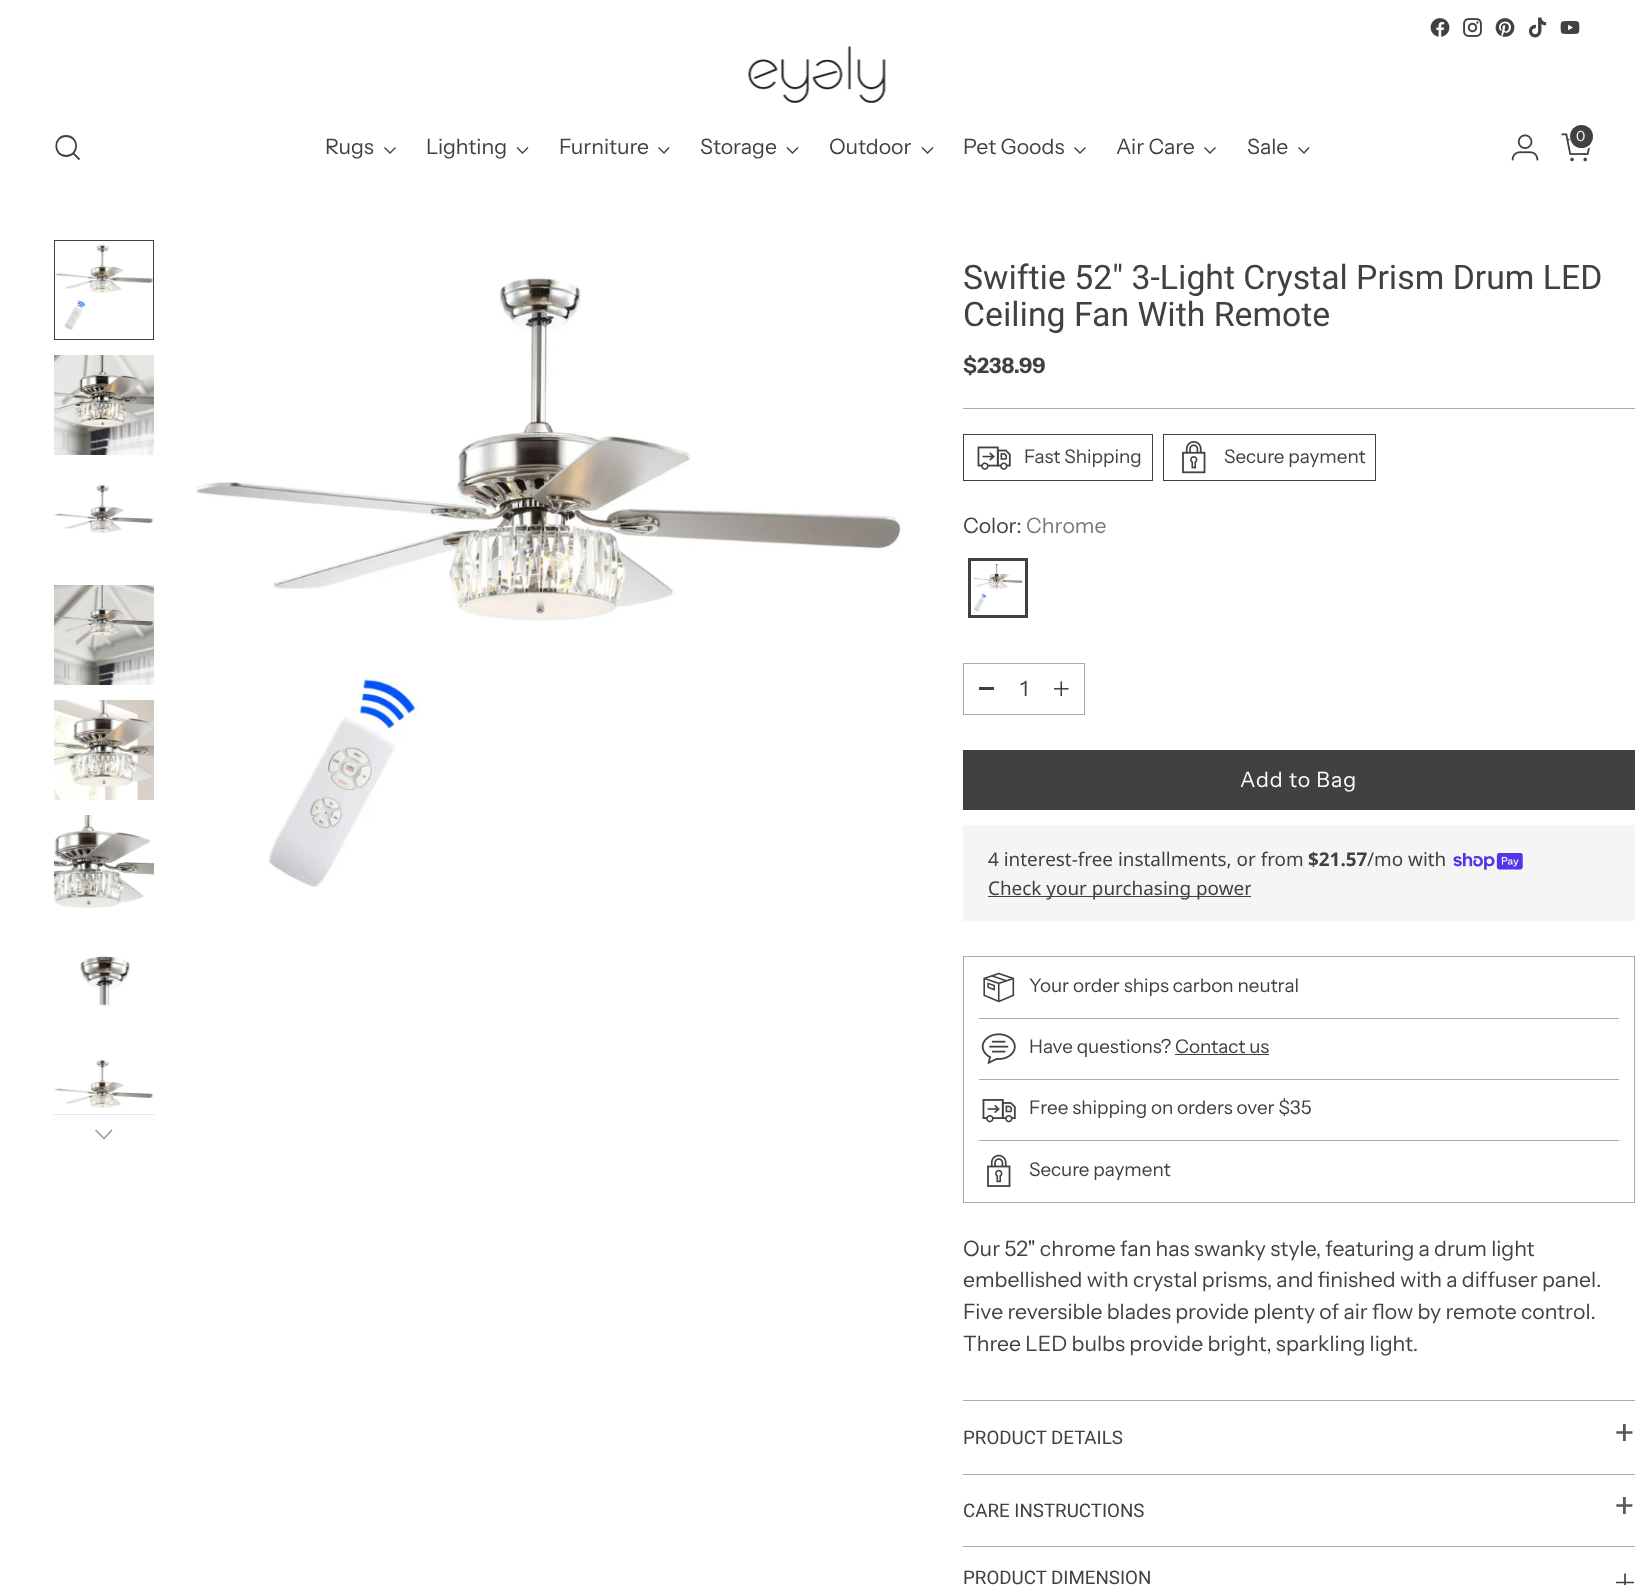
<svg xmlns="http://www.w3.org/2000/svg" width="1635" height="1585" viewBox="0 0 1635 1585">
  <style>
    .t1 { font: 21.25px Instrument Sans; fill: #414141; }
    .t2 { font: 14px Instrument Sans; fill: #fff; }
    .t3 { font: 33.75px Heebo; fill: #414141; }
    .t4 { font: bold 21.25px Instrument Sans; fill: #414141; }
    .t5 { font: 18.9px Instrument Sans; fill: #414141; }
    .t6 { font: 21.25px Instrument Sans; fill: #7a7a7a; }
    .t7 { font: 21.25px Instrument Sans; letter-spacing: 1px; fill: #fff; }
    .t8 { font: 18.9px Noto Sans; fill: #414141; }
    .t9 { font: bold 18.9px Noto Sans; fill: #414141; }
    .t10 { font: 18.75px Heebo; fill: #414141; }
    .t11 { font: 39px Instrument Sans; fill: #585858; }
  </style>
  <defs>
    <clipPath id="clip1"><rect x="963" y="750" width="672" height="60"/></clipPath>
    <clipPath id="clip2"><rect x="988" y="874" width="263" height="27"/></clipPath>
  </defs>
  <rect width="100%" height="100%" fill="#fff"/>
  <image x="1430" y="18" width="20" height="19" href="images/1.png"/>
  <image x="1463" y="18" width="19" height="19" href="images/2.png"/>
  <image x="1495" y="18" width="20" height="19" href="images/3.png"/>
  <image x="1529" y="17" width="18" height="21" href="images/4.png"/>
  <image x="1560" y="20" width="20" height="15" href="images/5.png"/>
  <image x="748" y="46" width="138" height="57" href="images/6.png"/>
  <path d="M66 156C79.5 156 79.5 136 66 136C53 136 53 156 66 156Z" fill="none" stroke="#414141" stroke-width="1.8" stroke-linecap="round"/>
  <path d="M73.5 153.5L79.5 159.5" fill="none" stroke="#414141" stroke-width="1.8"/>
  <text x="325" y="154" class="t1">Rugs</text>
  <path d="M384.5 147.5L390 153L395.5 147.5" fill="none" stroke="#414141" stroke-width="1.4"/>
  <text x="426" y="154" class="t1">Lighting</text>
  <path d="M517 147.5L522.5 153L528 147.5" fill="none" stroke="#414141" stroke-width="1.4"/>
  <text x="559" y="154" class="t1">Furniture</text>
  <path d="M658.5 147.5L664 153L669 147.5" fill="none" stroke="#414141" stroke-width="1.4"/>
  <text x="700" y="154" class="t1">Storage</text>
  <path d="M787 147.5L792.5 153L798 147.5" fill="none" stroke="#414141" stroke-width="1.4"/>
  <text x="829" y="154" class="t1">Outdoor</text>
  <path d="M922 147.5L927.5 153L933 147.5" fill="none" stroke="#414141" stroke-width="1.4"/>
  <text x="963" y="154" class="t1">Pet Goods</text>
  <path d="M1074.5 147.5L1080 153L1085.5 147.5" fill="none" stroke="#414141" stroke-width="1.4"/>
  <text x="1116" y="154" class="t1">Air Care</text>
  <path d="M1204.5 147.5L1210 153L1215.5 147.5" fill="none" stroke="#414141" stroke-width="1.4"/>
  <text x="1247" y="154" class="t1">Sale</text>
  <path d="M1298.5 147.5L1304 153L1309 147.5" fill="none" stroke="#414141" stroke-width="1.4"/>
  <image x="1511" y="134" width="28" height="27" href="images/7.png"/>
  <image x="1561" y="133" width="31" height="29" href="images/8.png"/>
  <circle cx="1582" cy="137" r="12" fill="none" stroke="#fff" stroke-width="2"/>
  <circle cx="1581.5" cy="136.5" r="11.5" fill="#414141"/>
  <text x="1576" y="141" class="t2">0</text>
  <image x="55" y="244" width="98" height="86" href="images/9.png"/>
  <rect x="54.5" y="240.5" width="99" height="99" fill="none" stroke="#414141"/>
  <image x="54" y="355" width="100" height="100" href="images/10.png"/>
  <image x="54" y="485" width="100" height="48" href="images/11.png"/>
  <image x="54" y="585" width="100" height="100" href="images/12.png"/>
  <image x="54" y="700" width="100" height="100" href="images/13.png"/>
  <image x="54" y="815" width="100" height="94" href="images/14.png"/>
  <image x="80" y="956" width="50" height="50" href="images/15.png"/>
  <image x="54" y="1060" width="100" height="48" href="images/16.png"/>
  <path d="M54 1114V1115H154V1151V1114Z" fill="#e8e8e8"/>
  <path d="M95.5 1130L104 1138.5L112 1130" fill="none" stroke="#a0a0a0" stroke-width="1.7"/>
  <image x="196" y="278" width="707" height="611" href="images/17.png"/>
  <rect x="963" y="408" width="672" height="1" fill="#aaa"/>
  <text x="963" y="289" class="t3">Swiftie 52" 3-Light Crystal Prism Drum LED</text>
  <text x="963" y="326" class="t3">Ceiling Fan With Remote</text>
  <text x="963" y="373" class="t4">$238.99</text>
  <rect x="963.5" y="434.5" width="189" height="46" fill="none" stroke="#414141"/>
  <image x="977" y="446" width="34" height="24" href="images/18.png"/>
  <text x="1024" y="463" class="t5">Fast Shipping</text>
  <rect x="1163.5" y="434.5" width="212" height="46" fill="none" stroke="#414141"/>
  <image x="1182" y="441" width="24" height="33" href="images/19.png"/>
  <text x="1224" y="463" class="t5">Secure payment</text>
  <text x="963" y="533" class="t1">Color:</text>
  <text x="1026" y="533" class="t6">Chrome</text>
  <image x="974" y="564" width="48" height="48" href="images/20.png"/>
  <rect x="969.5" y="559.5" width="57" height="57" fill="none" stroke="#414141" stroke-width="3"/>
  <rect x="963.5" y="663.5" width="121" height="51" fill="none" stroke="#aaa"/>
  <rect x="979" y="687" width="15" height="3" fill="#414141"/>
  <text x="1020" y="696" class="t1">1</text>
  <image x="1054" y="681" width="15" height="15" href="images/21.png"/>
  <g clip-path="url(#clip1)">
    <path d="M845 750H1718L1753 810H880Z" fill="#414141"/>
  </g>
  <text x="1240" y="787" class="t7">Add to Bag</text>
  <rect x="963" y="825" width="672" height="96" fill="#f5f5f5"/>
  <text x="988" y="866" class="t8">4 interest-free installments, or from</text>
  <text x="1308" y="866" class="t9">$21.57</text>
  <text x="1367" y="866" class="t8">/mo with</text>
  <image x="1453" y="853" width="70" height="17" href="images/22.png"/>
  <rect x="988" y="896" width="263" height="1" fill="#414141"/>
  <g clip-path="url(#clip2)">
    <text x="988" y="895" class="t8">Check your purchasing power</text>
  </g>
  <rect x="963.5" y="956.5" width="671" height="246" fill="none" stroke="#aaa"/>
  <image x="983" y="972" width="32" height="31" href="images/23.png"/>
  <text x="1029" y="992" class="t5">Your order ships carbon neutral</text>
  <rect x="979" y="1018" width="640" height="1" fill="#aaa"/>
  <image x="981" y="1033" width="35" height="32" href="images/24.png"/>
  <text x="1029" y="1053" class="t5">Have questions? Contact us</text>
  <rect x="1175" y="1054" width="94" height="1" fill="#414141"/>
  <rect x="979" y="1079" width="640" height="1" fill="#aaa"/>
  <image x="982" y="1099" width="34" height="24" href="images/25.png"/>
  <text x="1029" y="1114" class="t5">Free shipping on orders over $35</text>
  <rect x="979" y="1140" width="640" height="1" fill="#aaa"/>
  <image x="987" y="1154" width="24" height="33" href="images/26.png"/>
  <text x="1029" y="1176" class="t5">Secure payment</text>
  <text x="963" y="1256" class="t1">Our 52" chrome fan has swanky style, featuring a drum light</text>
  <text x="963" y="1287" class="t1">embellished with crystal prisms, and finished with a diffuser panel.</text>
  <text x="963" y="1319" class="t1">Five reversible blades provide plenty of air flow by remote control.</text>
  <text x="963" y="1351" class="t1">Three LED bulbs provide bright, sparkling light.</text>
  <rect x="963" y="1400" width="672" height="1" fill="#aaa"/>
  <rect x="963" y="1474" width="672" height="1" fill="#aaa"/>
  <text x="963" y="1444" class="t10">PRODUCT DETAILS</text>
  <text x="1614" y="1447" class="t11">+</text>
  <text x="963" y="1517" class="t10">CARE INSTRUCTIONS</text>
  <text x="1614" y="1520" class="t11">+</text>
  <rect x="963" y="1546" width="672" height="1" fill="#aaa"/>
  <text x="963" y="1584" class="t10">PRODUCT DIMENSION</text>
  <path d="M1616 1582.5H1625M1634 1582.5H1625M1625 1582.5V1573.5M1625 1582.5V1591.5" fill="none" stroke="#414141" stroke-width="1.7"/>
</svg>
